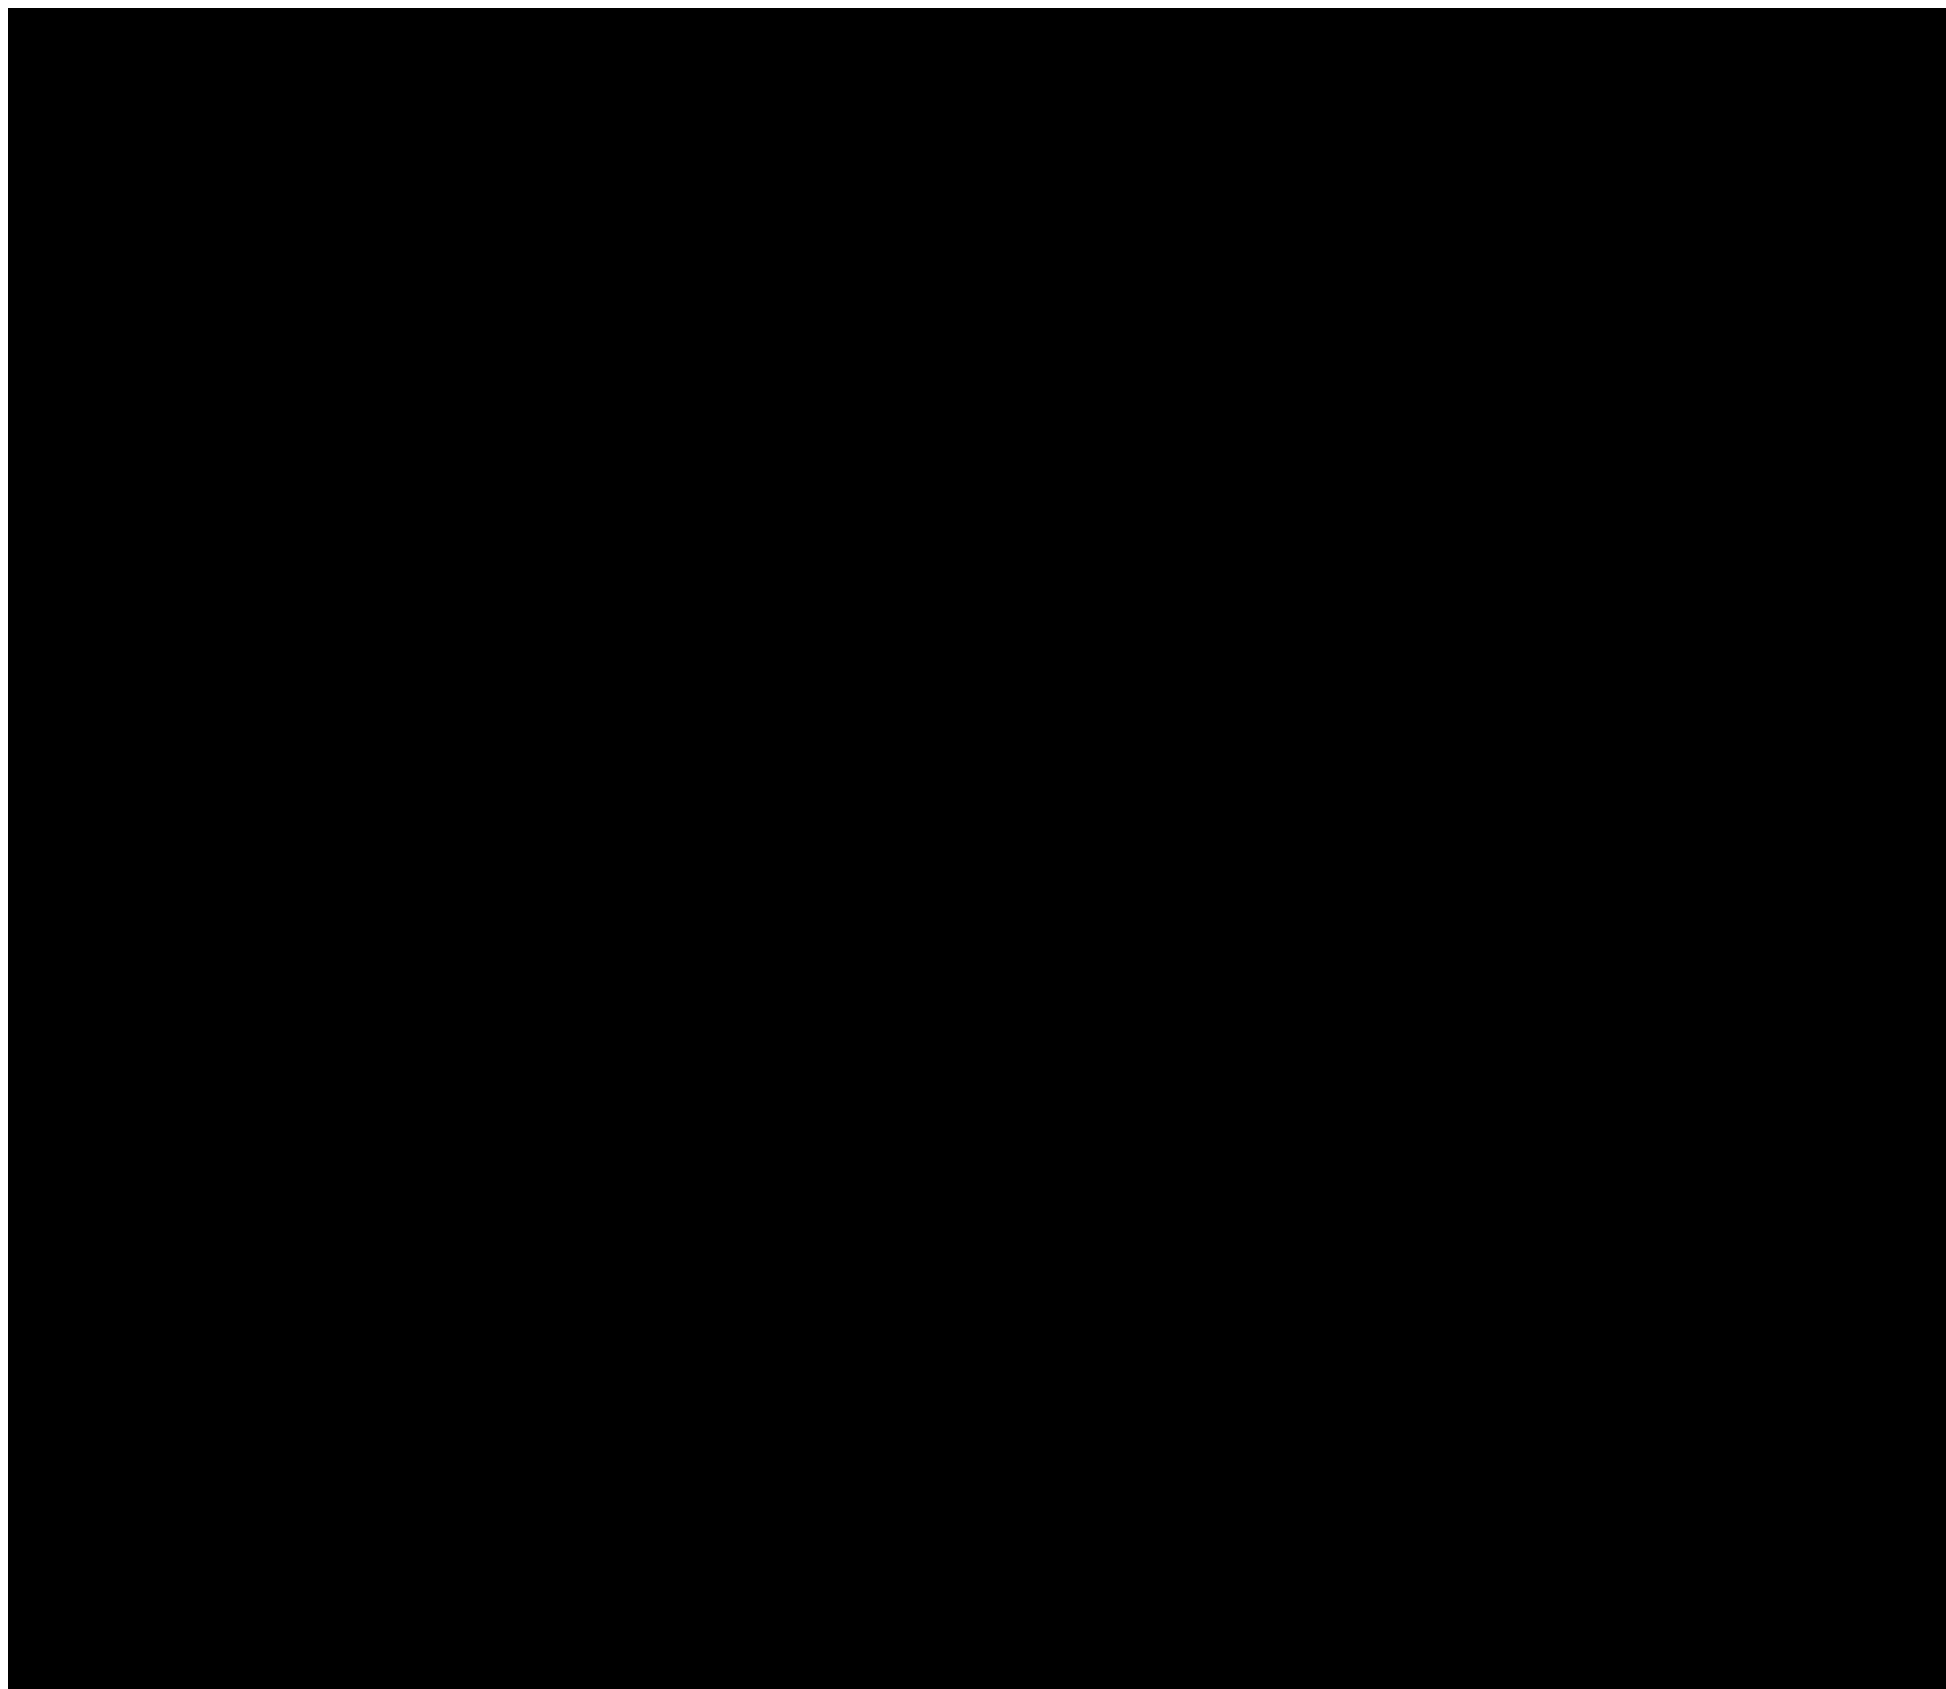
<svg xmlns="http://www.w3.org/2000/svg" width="1946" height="1689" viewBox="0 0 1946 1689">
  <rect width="100%" height="100%" fill="#fff"/>
  <rect x="8" y="8" width="1938" height="1681" fill="#000"/>
</svg>
